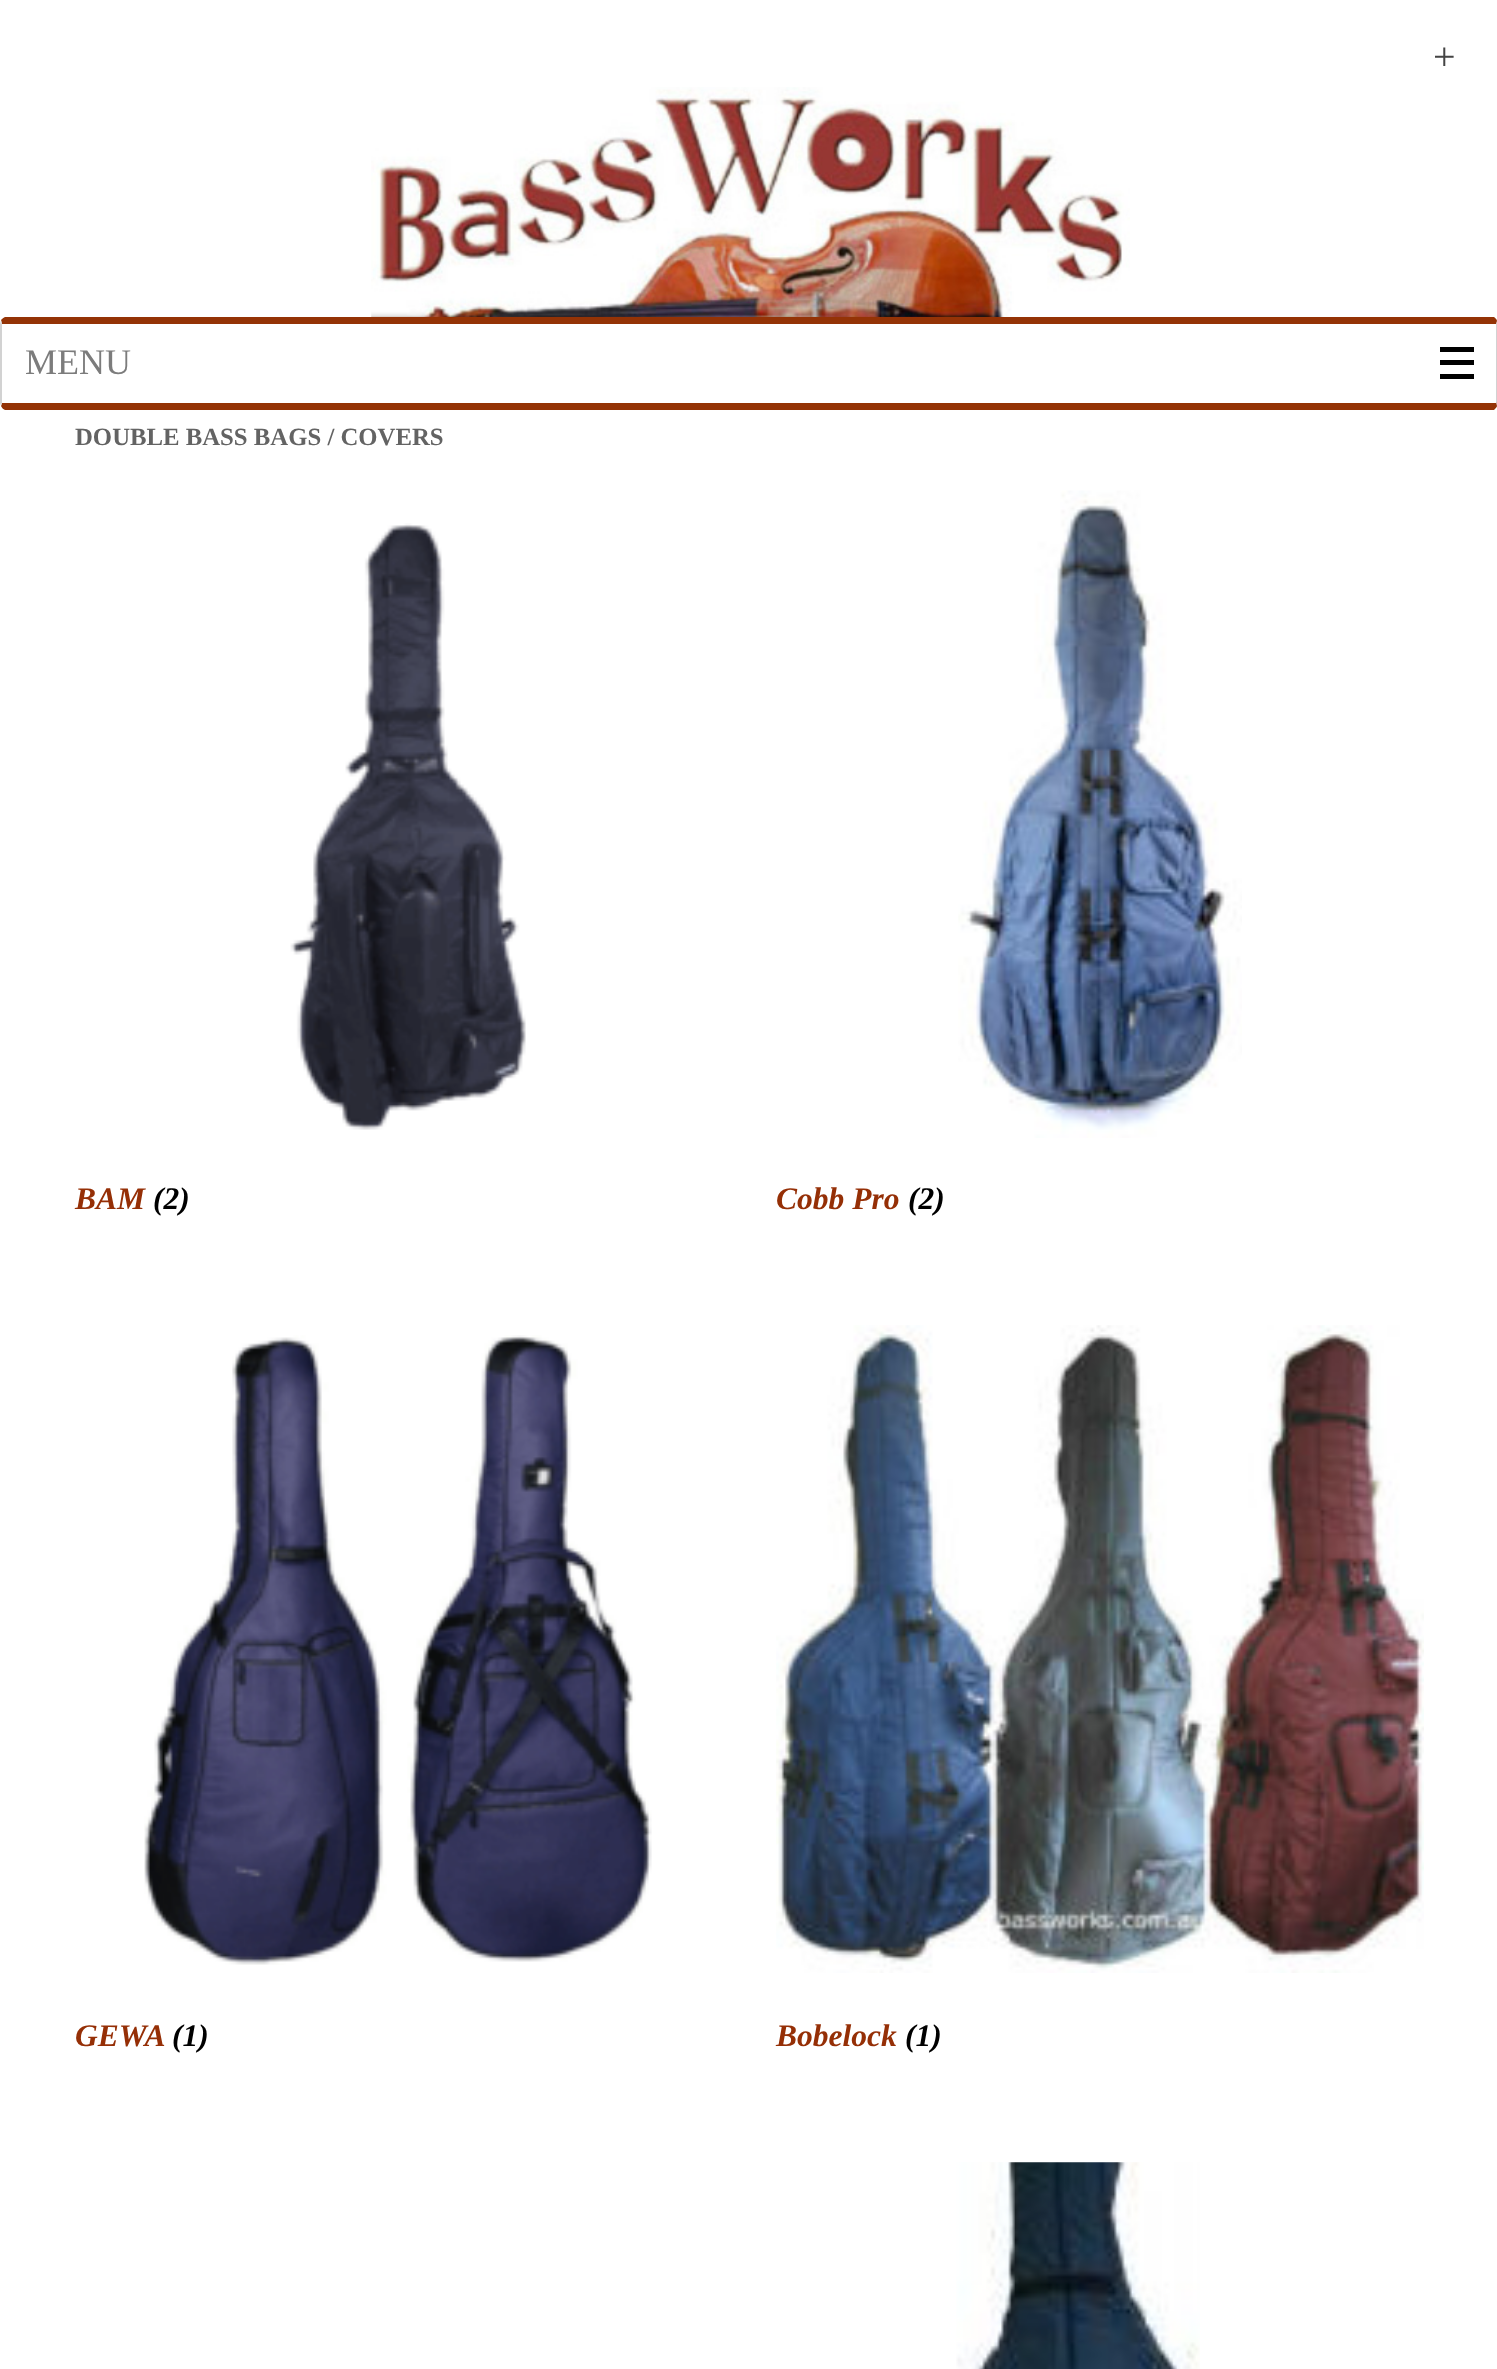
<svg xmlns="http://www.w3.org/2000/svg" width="1497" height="2369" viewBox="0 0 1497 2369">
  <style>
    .t1 { font: 40px Liberation Serif; fill: #444; }
    .t2 { font: bold 24.75px Liberation Serif; fill: #636363; }
    .t3 { font: italic bold 31.5px Liberation Serif; fill: #952f06; }
    .t4 { font: italic bold 31.5px Liberation Serif; fill: #000; }
    .t5 { font: 36px Liberation Serif; fill: #7c7c7c; }
  </style>
  <rect width="100%" height="100%" fill="#fff"/>
  <text x="1433" y="70" class="t1">+</text>
  <text x="75" y="445" class="t2">DOUBLE BASS BAGS / COVERS</text>
  <image x="290" y="523" width="236" height="607" href="images/1.png"/>
  <text x="75" y="1209" class="t3">BAM</text>
  <text x="153" y="1209" class="t4">(2)</text>
  <image x="958" y="490" width="284" height="648" href="images/2.png"/>
  <text x="776" y="1209" class="t3">Cobb Pro</text>
  <text x="908" y="1209" class="t4">(2)</text>
  <image x="144" y="1335" width="508" height="630" href="images/3.png"/>
  <text x="75" y="2046" class="t3">GEWA</text>
  <text x="172" y="2046" class="t4">(1)</text>
  <image x="776" y="1325" width="648" height="648" href="images/4.png"/>
  <text x="776" y="2046" class="t3">Bobelock</text>
  <text x="905" y="2046" class="t4">(1)</text>
  <image x="956" y="2162" width="244" height="207" href="images/5.png"/>
  <image x="371" y="87" width="759" height="230" href="images/6.png"/>
  <path d="M1 320C2 319 3 318 5 317H1494C1495 318 1497 319 1497 321L1496 325V324H2Z" fill="#943306"/>
  <path d="M1497 321L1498 324V403L1497 406L1496 402V325Z" fill="#d2d2d2"/>
  <path d="M5 410C3 409 2 408 1 406L2 403H1496V402L1497 406C1497 407 1495 409 1494 410Z" fill="#943306"/>
  <path d="M0 324V403L1 406L2 403V324L1 320Z" fill="#d2d2d2"/>
  <text x="25" y="374" class="t5">MENU</text>
  <rect x="1440" y="374" width="34" height="5" fill="#000"/>
  <rect x="1440" y="347" width="34" height="5" fill="#000"/>
  <rect x="1440" y="360" width="34" height="5" fill="#000"/>
</svg>
